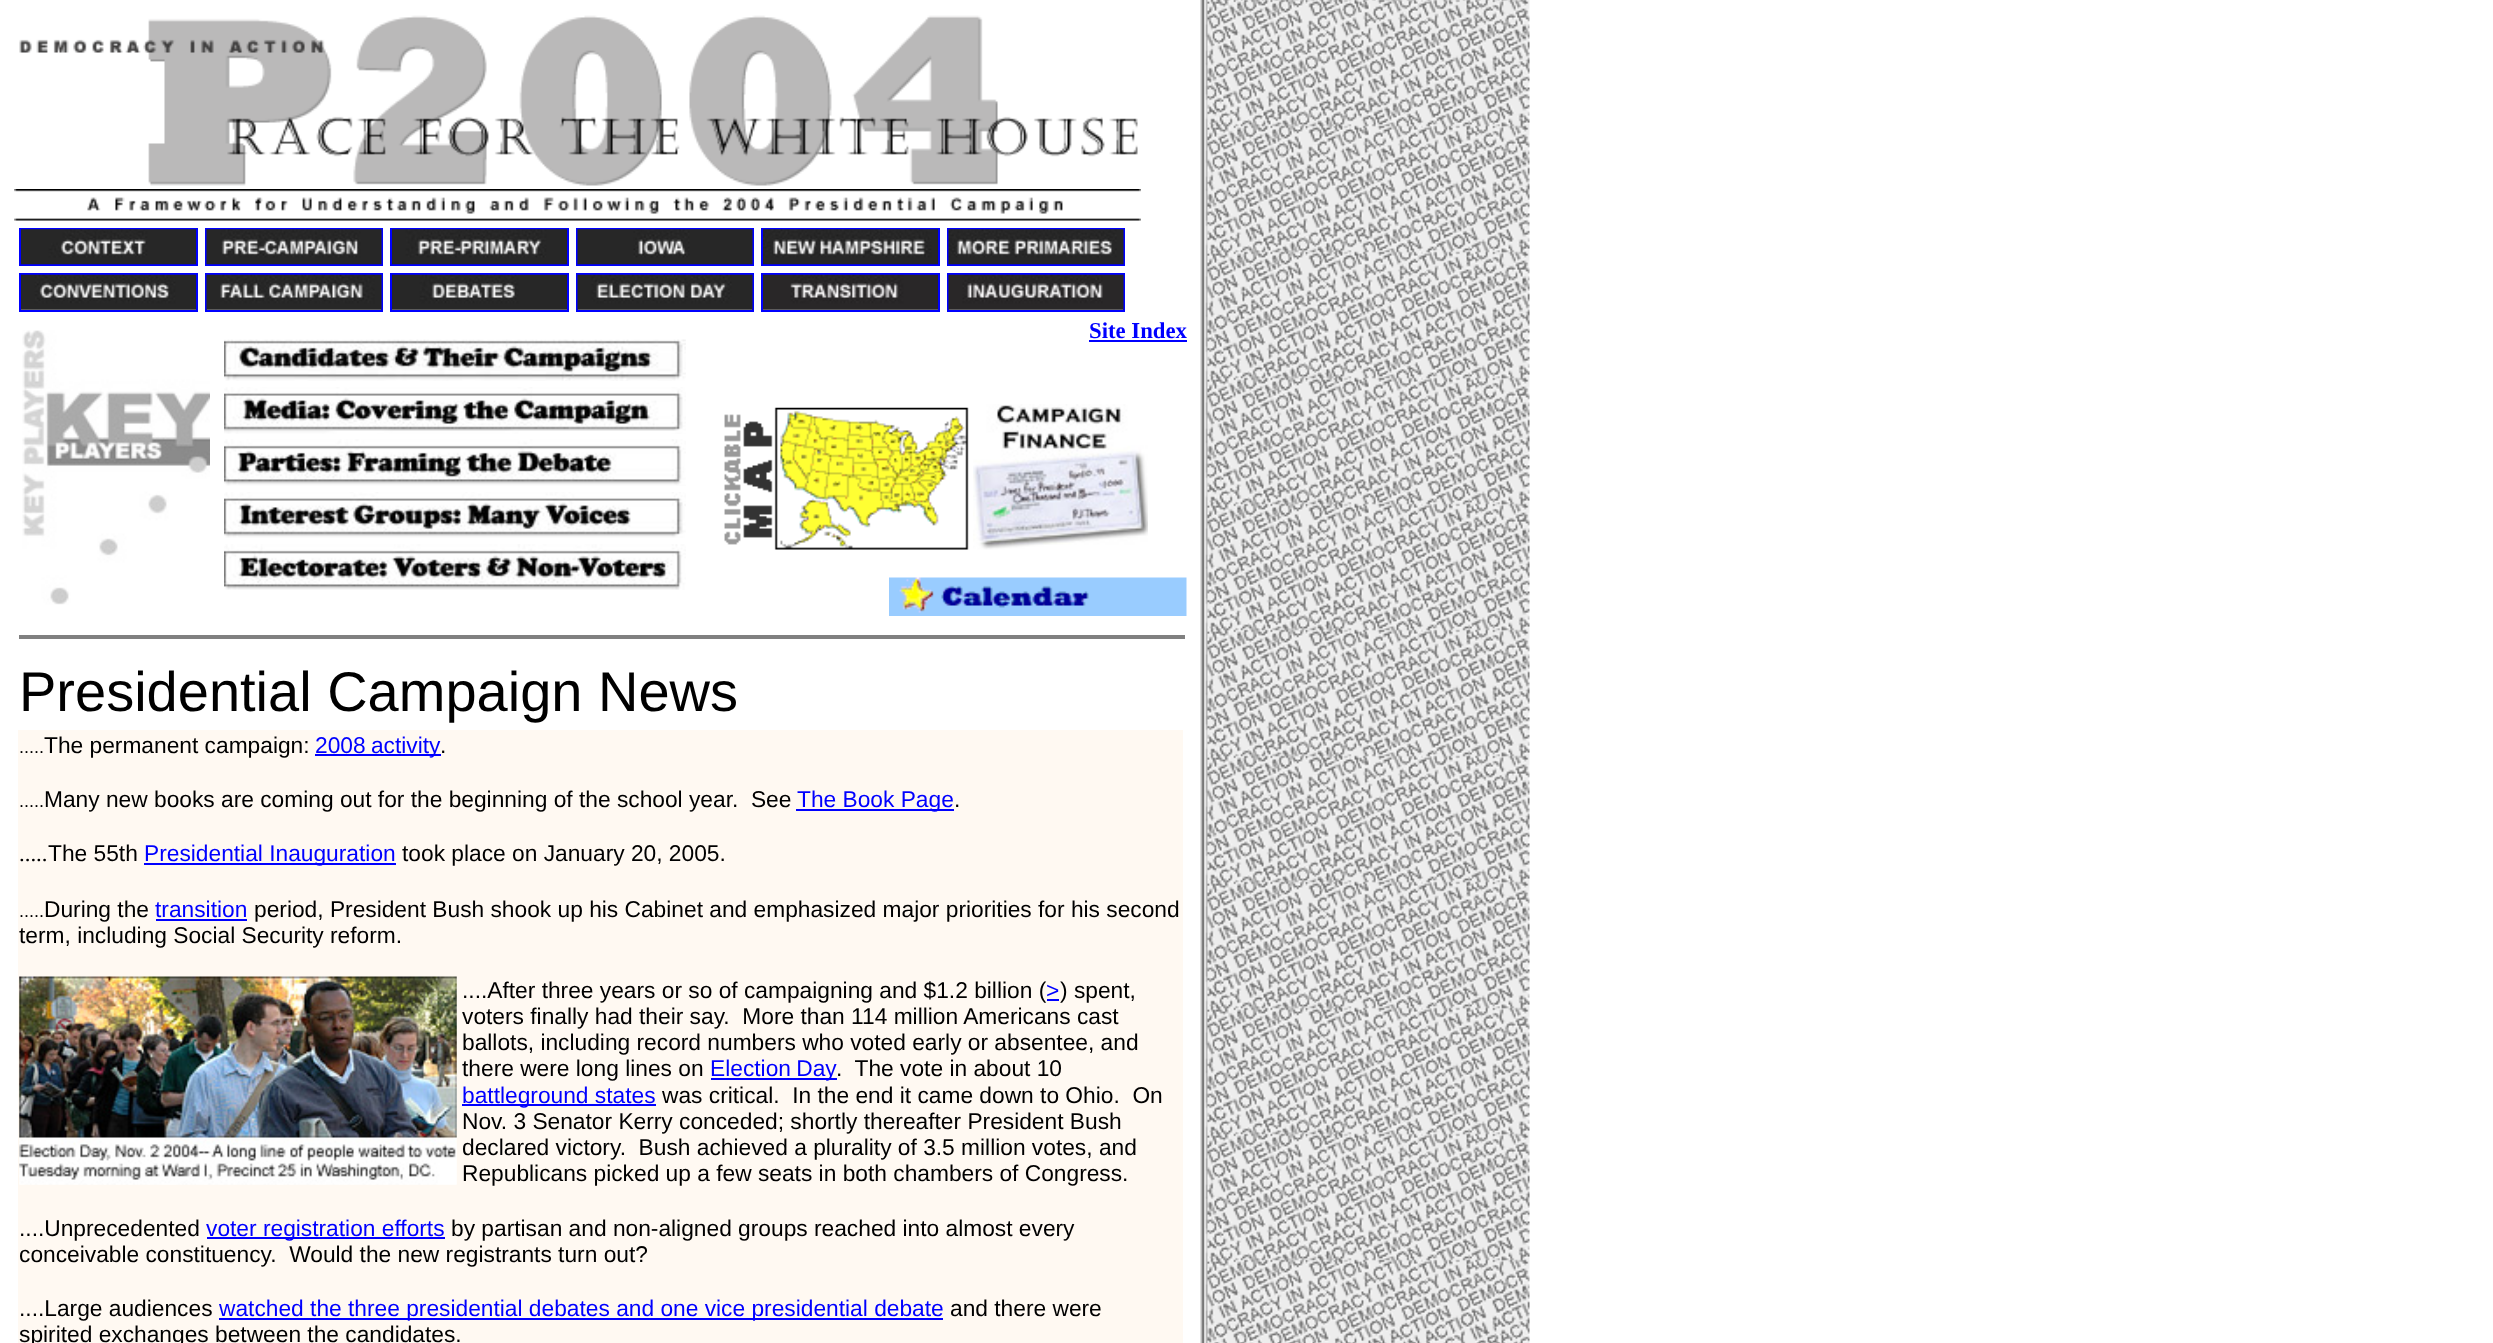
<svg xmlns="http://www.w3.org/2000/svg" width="2493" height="1343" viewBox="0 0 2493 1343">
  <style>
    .t1 { font: bold 22.75px Liberation Serif; fill: #00f; }
    .t2 { font: 56px Liberation Sans; fill: #000; }
    .t3 { font: 18px Liberation Sans; fill: #000; }
    .t4 { font: 22.75px Liberation Sans; fill: #000; }
    .t5 { font: 22.75px Liberation Sans; fill: #00f; }
    .t6 { font: 22.75px Liberation Serif; fill: #000; }
  </style>
  <rect width="100%" height="100%" fill="#fff"/>
  <image x="1200" y="0" width="330" height="1343" href="images/1.png"/>
  <image x="19" y="15" width="1119" height="171" href="images/2.png"/>
  <image x="14" y="189" width="1127" height="32" href="images/3.png"/>
  <rect x="20" y="229" width="177" height="36" fill="none" stroke="#00f" stroke-width="2"/>
  <image x="21" y="229" width="175" height="36" href="images/4.png"/>
  <rect x="206" y="229" width="176" height="36" fill="none" stroke="#00f" stroke-width="2"/>
  <image x="206" y="229" width="176" height="36" href="images/5.png"/>
  <rect x="391" y="229" width="177" height="36" fill="none" stroke="#00f" stroke-width="2"/>
  <image x="392" y="229" width="175" height="36" href="images/6.png"/>
  <rect x="577" y="229" width="176" height="36" fill="none" stroke="#00f" stroke-width="2"/>
  <image x="577" y="229" width="176" height="36" href="images/7.png"/>
  <rect x="762" y="229" width="177" height="36" fill="none" stroke="#00f" stroke-width="2"/>
  <image x="763" y="229" width="175" height="36" href="images/8.png"/>
  <rect x="948" y="229" width="176" height="36" fill="none" stroke="#00f" stroke-width="2"/>
  <image x="948" y="229" width="176" height="36" href="images/9.png"/>
  <rect x="20" y="274" width="177" height="37" fill="none" stroke="#00f" stroke-width="2"/>
  <image x="21" y="274" width="175" height="36" href="images/10.png"/>
  <rect x="206" y="274" width="176" height="37" fill="none" stroke="#00f" stroke-width="2"/>
  <image x="206" y="274" width="176" height="36" href="images/11.png"/>
  <rect x="391" y="274" width="177" height="37" fill="none" stroke="#00f" stroke-width="2"/>
  <image x="392" y="274" width="175" height="36" href="images/12.png"/>
  <rect x="577" y="274" width="176" height="37" fill="none" stroke="#00f" stroke-width="2"/>
  <image x="577" y="274" width="176" height="36" href="images/13.png"/>
  <rect x="762" y="274" width="177" height="37" fill="none" stroke="#00f" stroke-width="2"/>
  <image x="763" y="274" width="175" height="36" href="images/14.png"/>
  <rect x="948" y="274" width="176" height="37" fill="none" stroke="#00f" stroke-width="2"/>
  <image x="948" y="274" width="176" height="36" href="images/15.png"/>
  <image x="22" y="330" width="188" height="275" href="images/16.png"/>
  <image x="224" y="339" width="462" height="42" href="images/17.png"/>
  <image x="224" y="387" width="462" height="47" href="images/18.png"/>
  <image x="224" y="439" width="462" height="47" href="images/19.png"/>
  <image x="224" y="492" width="462" height="46" href="images/20.png"/>
  <image x="224" y="544" width="462" height="46" href="images/21.png"/>
  <text x="1089" y="338" class="t1">Site Index</text>
  <rect x="1089" y="340" width="98" height="2" fill="#00f"/>
  <image x="724" y="407" width="245" height="143" href="images/22.png"/>
  <image x="973" y="404" width="175" height="146" href="images/23.png"/>
  <image x="889" y="577" width="298" height="39" href="images/24.png"/>
  <rect x="19" y="635" width="1166" height="4" fill="#808080"/>
  <text x="19" y="711" class="t2">Presidential Campaign News</text>
  <rect x="18" y="730" width="1165" height="613" fill="#fff9f2"/>
  <text x="19" y="753" class="t3">.....</text>
  <text x="44" y="753" class="t4">The permanent campaign:</text>
  <rect x="315" y="754" width="126" height="2" fill="#00f"/>
  <text x="315" y="753" word-spacing="-1" class="t5">2008 activity</text>
  <text x="440" y="753" class="t4">.</text>
  <text x="19" y="807" class="t3">.....</text>
  <text x="44" y="807" class="t4" xml:space="preserve">Many new books are coming out for the beginning of the school year.  See</text>
  <rect x="796" y="809" width="158" height="2" fill="#00f"/>
  <text x="797" y="807" class="t5">The Book Page</text>
  <text x="954" y="807" class="t4">.</text>
  <text x="19" y="861" class="t6">.....</text>
  <text x="48" y="861" class="t4">The 55th</text>
  <rect x="144" y="863" width="252" height="2" fill="#00f"/>
  <text x="144" y="861" class="t5">Presidential Inauguration</text>
  <text x="402" y="861" class="t4">took place on January 20, 2005.</text>
  <text x="19" y="917" class="t3">.....</text>
  <text x="44" y="917" class="t4">During the</text>
  <text x="155" y="917" class="t5">transition</text>
  <rect x="156" y="919" width="91" height="2" fill="#00f"/>
  <text x="254" y="917" class="t4">period, President Bush shook up his Cabinet and emphasized major priorities for his second</text>
  <text x="19" y="943" class="t4">term, including Social Security reform.</text>
  <image x="19" y="976" width="438" height="209" href="images/25.png"/>
  <text x="462" y="998" class="t4">....After three years or so of campaigning and $1.2 billion (</text>
  <rect x="1047" y="999" width="12" height="2" fill="#00f"/>
  <text x="1046" y="998" class="t5">&gt;</text>
  <text x="1060" y="998" class="t4">) spent,</text>
  <text x="462" y="1024" class="t4" xml:space="preserve">voters finally had their say.  More than 114 million Americans cast</text>
  <text x="462" y="1050" class="t4">ballots, including record numbers who voted early or absentee, and</text>
  <text x="462" y="1076" class="t4">there were long lines on</text>
  <rect x="711" y="1078" width="126" height="2" fill="#00f"/>
  <text x="710" y="1076" word-spacing="-1" class="t5">Election Day</text>
  <text x="836" y="1076" class="t4" xml:space="preserve">.  The vote in about 10</text>
  <rect x="462" y="1104" width="194" height="2" fill="#00f"/>
  <text x="462" y="1103" class="t5">battleground states</text>
  <text x="662" y="1103" class="t4" xml:space="preserve">was critical.  In the end it came down to Ohio.  On</text>
  <text x="462" y="1129" class="t4">Nov. 3 Senator Kerry conceded; shortly thereafter President Bush</text>
  <text x="462" y="1155" class="t4" xml:space="preserve">declared victory.  Bush achieved a plurality of 3.5 million votes, and</text>
  <text x="462" y="1181" class="t4">Republicans picked up a few seats in both chambers of Congress.</text>
  <text x="19" y="1236" class="t4">....Unprecedented</text>
  <rect x="207" y="1237" width="238" height="2" fill="#00f"/>
  <text x="206" y="1236" class="t5">voter registration efforts</text>
  <text x="451" y="1236" class="t4">by partisan and non-aligned groups reached into almost every</text>
  <text x="19" y="1262" class="t4" xml:space="preserve">conceivable constituency.  Would the new registrants turn out?</text>
  <text x="19" y="1316" class="t4">....Large audiences</text>
  <rect x="219" y="1318" width="724" height="2" fill="#00f"/>
  <text x="219" y="1316" class="t5">watched the three presidential debates and one vice presidential debate</text>
  <text x="950" y="1316" class="t4">and there were</text>
  <text x="19" y="1342" class="t4">spirited exchanges between the candidates.</text>
</svg>
